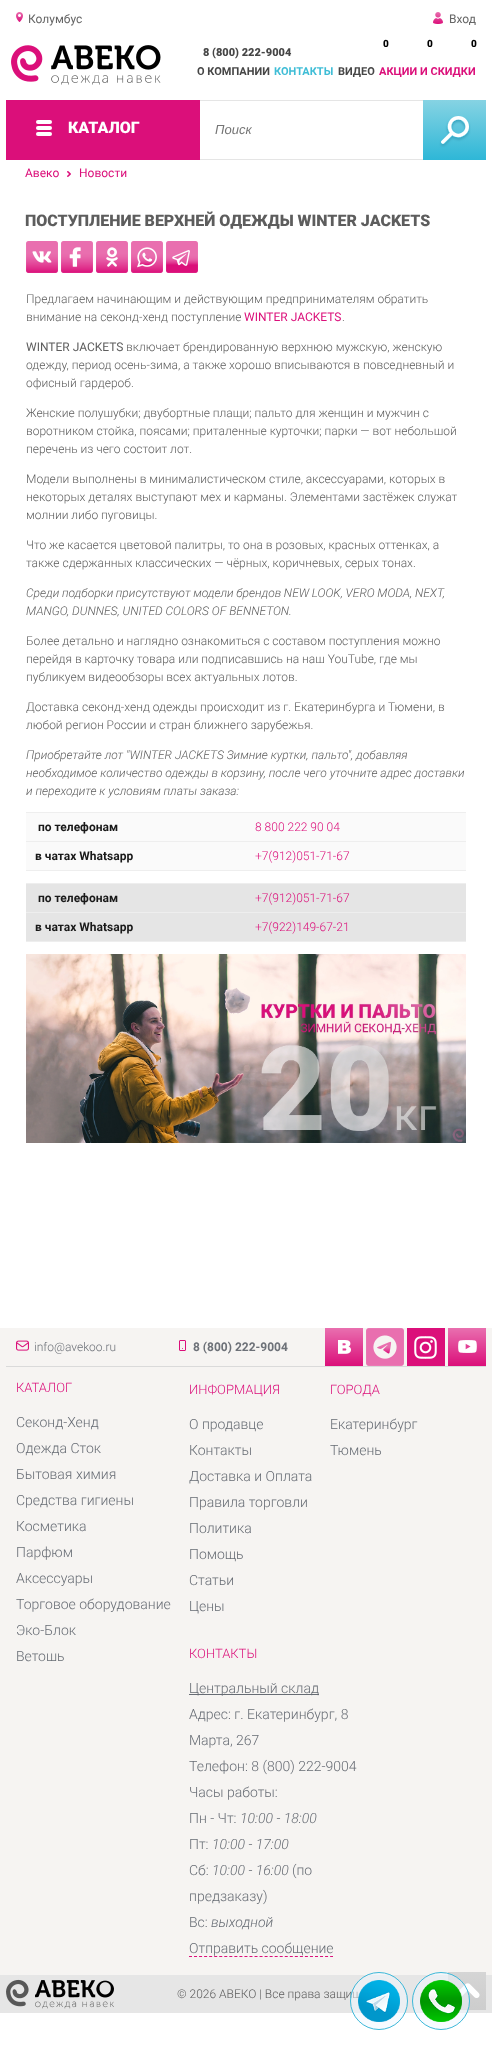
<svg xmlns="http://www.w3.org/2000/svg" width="492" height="2050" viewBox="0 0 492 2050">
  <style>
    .t1 { font: 12px Roboto; fill: #666; }
    .t2 { font: 900 10px Roboto; fill: #000; }
    .t3 { font: 900 11px Roboto; fill: #464646; }
    .t4 { font: bold 11px Roboto; fill: #464646; }
    .t5 { font: bold 11px Roboto; fill: #3fbdd6; }
    .t6 { font: bold 11px Roboto; fill: #db0f7a; }
    .t7 { font: 900 16px Roboto; fill: #fff; }
    .t8 { font: italic 13px Liberation Sans; fill: #757575; }
    .t9 { font: 12px Roboto; fill: #db0f7a; }
    .t10 { font: 900 16px Roboto; fill: #5d5d5d; }
    .t11 { font: 300 12px Roboto; fill: #5d5d5d; }
    .t12 { font: 12px Roboto; fill: #5d5d5d; }
    .t13 { font: italic 300 12px Roboto; fill: #5d5d5d; }
    .t14 { font: bold 12px Roboto; fill: #191919; }
    .t15 { font: 300 12px Roboto; fill: #db0f7a; }
    .t16 { font: 300 12px Roboto; fill: #6d7178; }
    .t17 { font: bold 12px Roboto; fill: #6d7178; }
    .t18 { font: 300 13px Roboto; fill: #db0f7a; }
    .t19 { font: 300 14px Roboto; fill: #676c74; }
    .t20 { font: italic 300 14px Roboto; fill: #676c74; }
  </style>
  <defs>
    <linearGradient id="g1" gradientUnits="userSpaceOnUse" x1="467" y1="1972" x2="467" y2="2010"><stop offset="0" stop-color="#d5d5d5"/><stop offset="1" stop-color="#cdcdcd"/></linearGradient>
  </defs>
  <rect width="100%" height="100%" fill="#fff"/>
  <image x="16" y="12" width="7" height="10" href="images/1.png"/>
  <text x="28" y="23" class="t1">Колумбус</text>
  <image x="433" y="12" width="10" height="12" href="images/2.png"/>
  <text x="449" y="23" class="t1">Вход</text>
  <text x="383" y="47" class="t2">0</text>
  <text x="427" y="47" class="t2">0</text>
  <text x="471" y="47" class="t2">0</text>
  <image x="11" y="45" width="150" height="40" href="images/3.png"/>
  <text x="203" y="56" class="t3">8 (800) 222-9004</text>
  <text x="197" y="75" class="t4">О КОМПАНИИ</text>
  <text x="274" y="75" class="t5">КОНТАКТЫ</text>
  <text x="338" y="75" class="t4">ВИДЕО</text>
  <text x="379" y="75" class="t6">АКЦИИ И СКИДКИ</text>
  <rect x="6" y="100" width="194" height="60" fill="#db0f7a"/>
  <rect x="36" y="120" width="16" height="4" rx="2" fill="#fff"/>
  <rect x="36" y="126" width="16" height="4" rx="2" fill="#fff"/>
  <rect x="36" y="132" width="16" height="4" rx="2" fill="#fff"/>
  <text x="68" y="133" class="t7">КАТАЛОГ</text>
  <rect x="200" y="100" width="223" height="1" fill="#e5e5e5"/>
  <rect x="200" y="159" width="223" height="1" fill="#e5e5e5"/>
  <text x="215" y="134" class="t8">Поиск</text>
  <image x="423" y="100" width="63" height="60" href="images/4.png"/>
  <text x="25" y="177" class="t9">Авеко</text>
  <image x="67" y="171" width="4" height="6" href="images/5.png"/>
  <text x="79" y="177" class="t9">Новости</text>
  <text x="25" y="226" class="t10">ПОСТУПЛЕНИЕ ВЕРХНЕЙ ОДЕЖДЫ WINTER JACKETS</text>
  <image x="26" y="241" width="32" height="32" href="images/6.png"/>
  <image x="61" y="241" width="32" height="32" href="images/7.png"/>
  <image x="96" y="241" width="32" height="32" href="images/8.png"/>
  <image x="131" y="241" width="32" height="32" href="images/9.png"/>
  <image x="166" y="241" width="32" height="32" href="images/10.png"/>
  <text x="26" y="303" class="t11">Предлагаем начинающим и действующим предпринимателям обратить</text>
  <text x="26" y="321" class="t11">внимание на секонд-хенд поступление</text>
  <text x="244" y="321" class="t9">WINTER JACKETS</text>
  <text x="342" y="321" class="t11">.</text>
  <text x="26" y="351" class="t12">WINTER JACKETS</text>
  <text x="126" y="351" class="t11">включает брендированную верхнюю мужскую, женскую</text>
  <text x="26" y="369" class="t11">одежду, период осень-зима, а также хорошо вписываются в повседневный и</text>
  <text x="26" y="387" class="t11">офисный гардероб.</text>
  <text x="26" y="417" class="t11">Женские полушубки; двубортные плащи; пальто для женщин и мужчин с</text>
  <text x="26" y="435" class="t11">воротником стойка, поясами; приталенные курточки; парки — вот небольшой</text>
  <text x="26" y="453" class="t11">перечень из чего состоит лот.</text>
  <text x="26" y="483" class="t11">Модели выполнены в минималистическом стиле, аксессуарами, которых в</text>
  <text x="26" y="501" class="t11">некоторых деталях выступают мех и карманы. Элементами застёжек служат</text>
  <text x="26" y="519" class="t11">молнии либо пуговицы.</text>
  <text x="26" y="549" class="t11">Что же касается цветовой палитры, то она в розовых, красных оттенках, а</text>
  <text x="26" y="567" class="t11">также сдержанных классических — чёрных, коричневых, серых тонах.</text>
  <text x="26" y="597" word-spacing="-0.25" class="t13">Среди подборки присутствуют модели брендов NEW LOOK, VERO MODA, NEXT,</text>
  <text x="26" y="615" class="t13">MANGO, DUNNES, UNITED COLORS OF BENNETON.</text>
  <text x="26" y="645" class="t11">Более детально и наглядно ознакомиться с составом поступления можно</text>
  <text x="26" y="663" class="t11">перейдя в карточку товара или подписавшись на наш YouTube, где мы</text>
  <text x="26" y="681" class="t11">публикуем видеообзоры всех актуальных лотов.</text>
  <text x="26" y="711" class="t11">Доставка секонд-хенд одежды происходит из г. Екатеринбурга и Тюмени, в</text>
  <text x="26" y="729" class="t11">любой регион России и стран ближнего зарубежья.</text>
  <text x="26" y="759" class="t13">Приобретайте лот "WINTER JACKETS Зимние куртки, пальто", добавляя</text>
  <text x="26" y="777" class="t13">необходимое количество одежды в корзину, после чего уточните адрес доставки</text>
  <text x="26" y="795" class="t13">и переходите к условиям платы заказа:</text>
  <rect x="26" y="813" width="440" height="57" fill="#fafafa"/>
  <rect x="26" y="870" width="440" height="1" fill="#eee"/>
  <rect x="26" y="812" width="440" height="1" fill="#eee"/>
  <text x="38" y="831" class="t14">по телефонам</text>
  <text x="255" y="831" class="t15">8 800 222 90 04</text>
  <rect x="26" y="841" width="440" height="1" fill="#eee"/>
  <text x="35" y="860" class="t14">в чатах Whatsapp</text>
  <text x="255" y="860" class="t15">+7(912)051-71-67</text>
  <rect x="26" y="884" width="440" height="57" fill="#e5e5e5"/>
  <rect x="26" y="941" width="440" height="1" fill="#eee"/>
  <rect x="26" y="883" width="440" height="1" fill="#eee"/>
  <text x="38" y="902" class="t14">по телефонам</text>
  <text x="255" y="902" class="t15">+7(912)051-71-67</text>
  <rect x="26" y="912" width="440" height="1" fill="#eee"/>
  <text x="35" y="931" class="t14">в чатах Whatsapp</text>
  <text x="255" y="931" class="t15">+7(922)149-67-21</text>
  <image x="26" y="954" width="440" height="189" href="images/11.png"/>
  <rect x="0" y="1328" width="492" height="647" fill="#f6f4f2"/>
  <rect x="6" y="1366" width="480" height="1" fill="#dadada"/>
  <image x="16" y="1340" width="13" height="11" href="images/12.png"/>
  <text x="34" y="1351" class="t16">info@avekoo.ru</text>
  <text x="193" y="1351" class="t17">8 (800) 222-9004</text>
  <rect x="179.5" y="1340.5" width="6" height="10" rx="0.5" fill="none" stroke="#db0f7a"/>
  <circle cx="182.5" cy="1348.5" r="0.5" fill="#db0f7a"/>
  <image x="325" y="1328" width="38" height="38" href="images/13.png"/>
  <image x="366" y="1328" width="38" height="38" href="images/14.png"/>
  <image x="407" y="1328" width="38" height="38" href="images/15.png"/>
  <image x="448" y="1328" width="38" height="38" href="images/16.png"/>
  <text x="16" y="1392" class="t18">КАТАЛОГ</text>
  <text x="16" y="1427" class="t19">Секонд-Хенд</text>
  <text x="16" y="1453" class="t19">Одежда Сток</text>
  <text x="16" y="1479" class="t19">Бытовая химия</text>
  <text x="16" y="1505" class="t19">Средства гигиены</text>
  <text x="16" y="1531" class="t19">Косметика</text>
  <text x="16" y="1557" class="t19">Парфюм</text>
  <text x="16" y="1583" class="t19">Аксессуары</text>
  <text x="16" y="1609" class="t19">Торговое оборудование</text>
  <text x="16" y="1635" class="t19">Эко-Блок</text>
  <text x="16" y="1661" class="t19">Ветошь</text>
  <text x="189" y="1394" class="t18">ИНФОРМАЦИЯ</text>
  <text x="189" y="1429" class="t19">О продавце</text>
  <text x="189" y="1455" class="t19">Контакты</text>
  <text x="189" y="1481" class="t19">Доставка и Оплата</text>
  <text x="189" y="1507" class="t19">Правила торговли</text>
  <text x="189" y="1533" class="t19">Политика</text>
  <text x="189" y="1559" class="t19">Помощь</text>
  <text x="189" y="1585" class="t19">Статьи</text>
  <text x="189" y="1611" class="t19">Цены</text>
  <text x="330" y="1394" class="t18">ГОРОДА</text>
  <text x="330" y="1429" class="t19">Екатеринбург</text>
  <text x="330" y="1455" class="t19">Тюмень</text>
  <text x="189" y="1658" class="t18">КОНТАКТЫ</text>
  <rect x="189" y="1694" width="130" height="1" fill="#676c74"/>
  <text x="189" y="1693" class="t19">Центральный склад</text>
  <text x="189" y="1719" class="t19">Адрес: г. Екатеринбург, 8</text>
  <text x="189" y="1745" class="t19">Марта, 267</text>
  <text x="189" y="1771" class="t19">Телефон: 8 (800) 222-9004</text>
  <text x="189" y="1797" class="t19">Часы работы:</text>
  <text x="189" y="1823" class="t19">Пн - Чт:</text>
  <text x="240" y="1823" class="t20">10:00 - 18:00</text>
  <text x="189" y="1849" class="t19">Пт:</text>
  <text x="212" y="1849" class="t20">10:00 - 17:00</text>
  <text x="189" y="1875" class="t19">Сб:</text>
  <text x="212" y="1875" class="t20">10:00 - 16:00</text>
  <text x="292" y="1875" class="t19">(по</text>
  <text x="189" y="1901" class="t19">предзаказу)</text>
  <text x="189" y="1927" class="t19">Вc:</text>
  <text x="211" y="1927" class="t20">выходной</text>
  <text x="189" y="1953" class="t19">Отправить сообщение</text>
  <path d="M189 1956.5H333" fill="none" stroke="#db0f7a" stroke-dasharray="3 2.04"/>
  <rect x="0" y="1975" width="492" height="38" fill="#e6e6e6"/>
  <image x="6" y="1979" width="108" height="30" href="images/17.png"/>
  <text x="177" y="1998" class="t11">© 2026 АВЕКО | Все права защищ</text>
  <rect x="448" y="1972" width="38" height="38" fill="url(#g1)"/>
  <image x="458" y="1983" width="22" height="15" href="images/18.png"/>
  <circle cx="379" cy="2001" r="28.5" fill="#f0f8ff80" stroke="#3db8d9"/>
  <image x="358" y="1980" width="42" height="42" href="images/19.png"/>
  <circle cx="441" cy="2001" r="28.5" fill="#f0f8ff80" stroke="#3db8d9"/>
  <image x="420" y="1980" width="42" height="42" href="images/20.png"/>
</svg>
